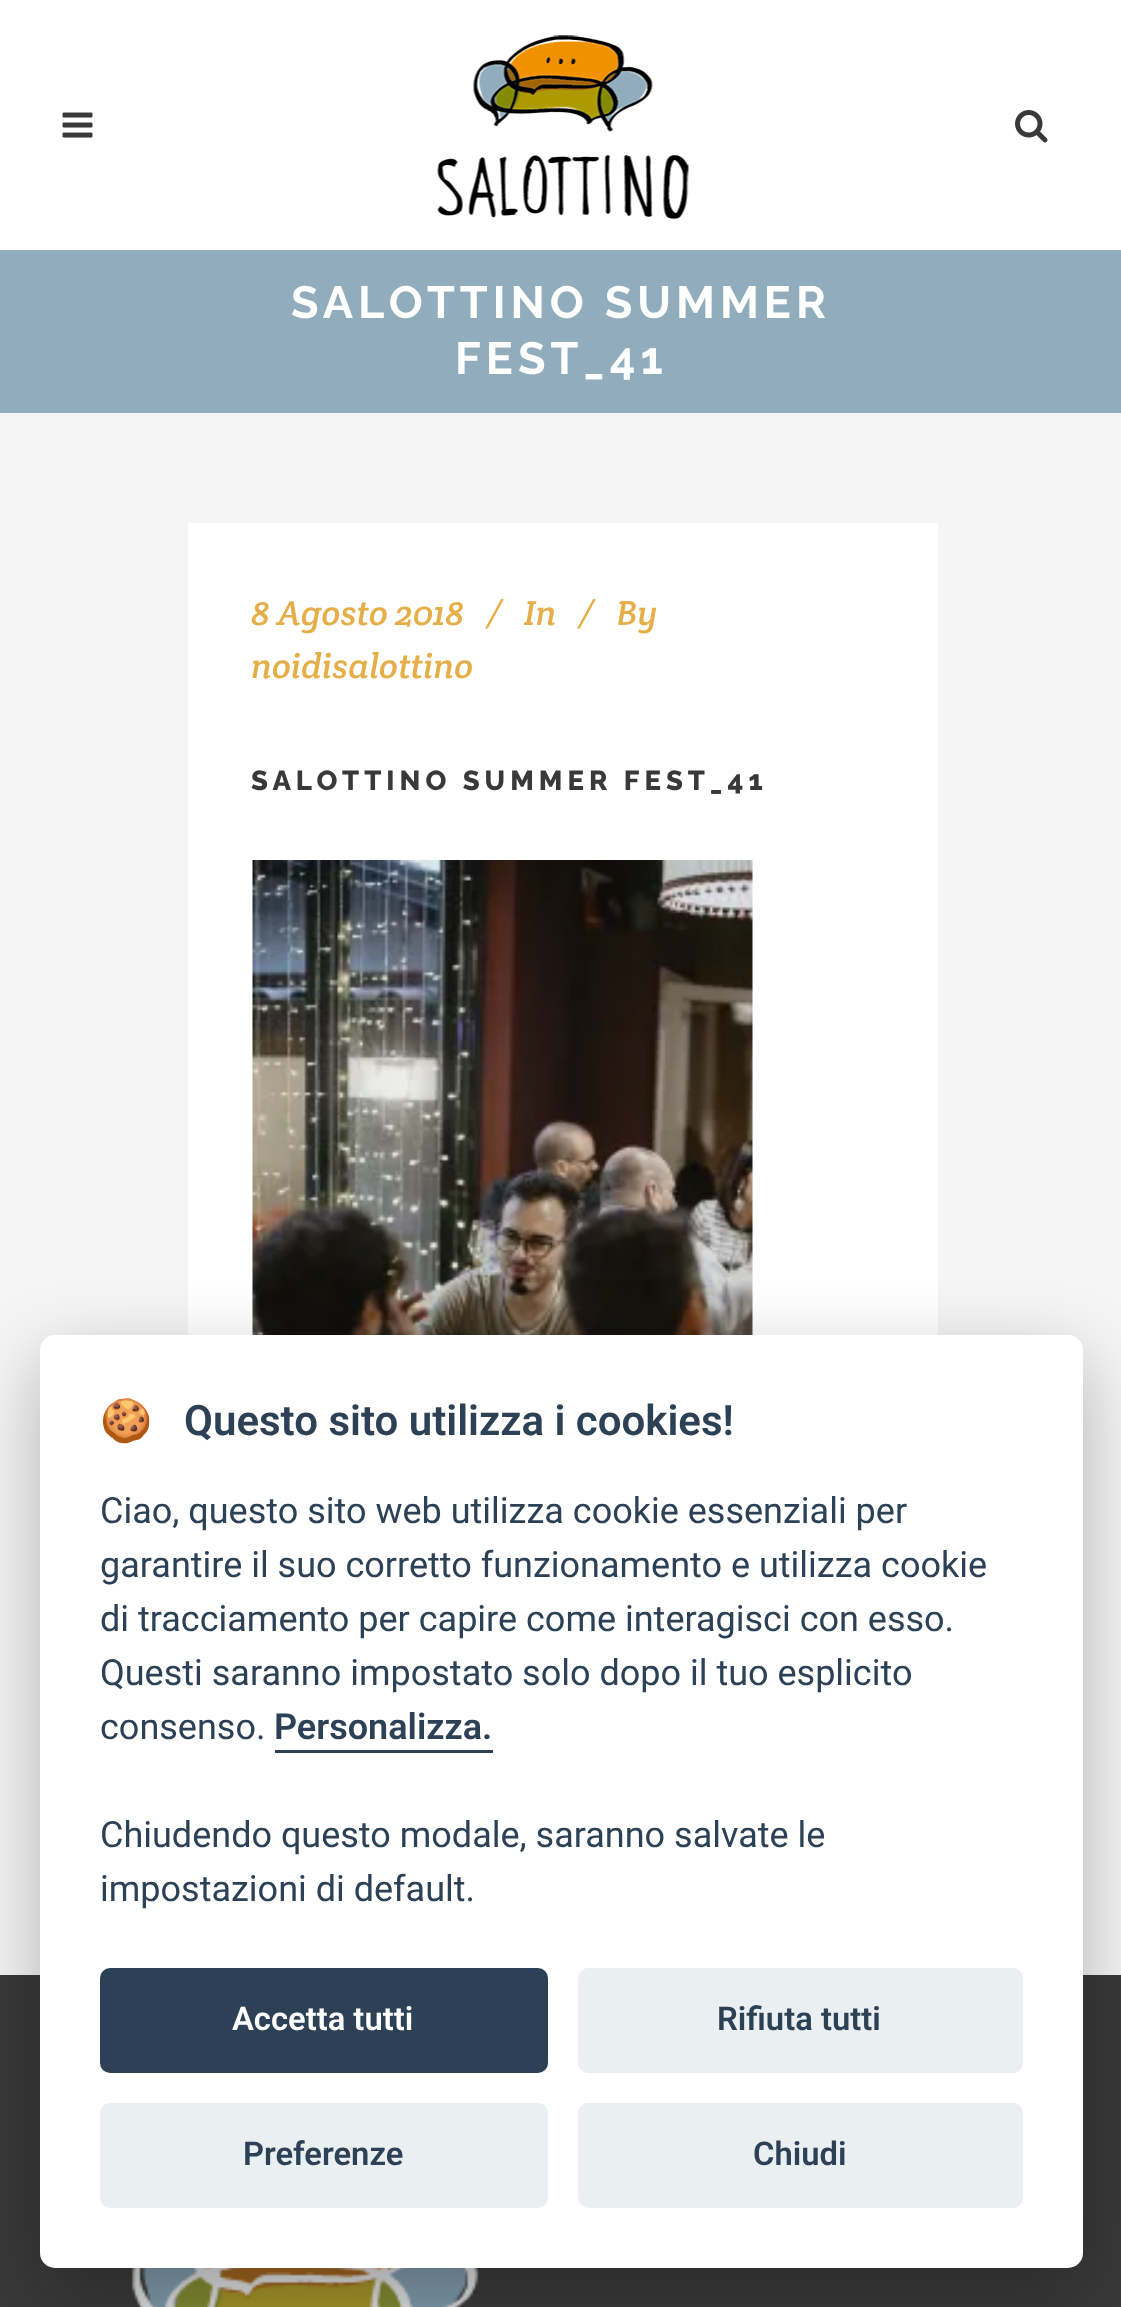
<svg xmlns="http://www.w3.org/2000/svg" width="1121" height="2307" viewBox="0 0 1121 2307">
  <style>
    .t1 { font: bold 45px Raleway; letter-spacing: 5px; fill: #fff; }
    .t2 { font: italic 35px Crete Round; fill: #e6ae48; }
    .t3 { font: 800 27.5px Raleway; letter-spacing: 5px; fill: #393939; }
    .t4 { font: bold 42px Noto Color Emoji; fill: #2d4156; }
    .t5 { font: 600 42px Roboto; fill: #2d4156; }
    .t6 { font: 36px Roboto; fill: #2d4156; }
    .t7 { font: 600 36px Roboto; fill: #2d4156; }
    .t8 { font: 600 32.75px Roboto; fill: #fff; }
    .t9 { font: 600 32.75px Roboto; fill: #2d4156; }
  </style>
  <rect width="100%" height="100%" fill="#f5f5f5"/>
  <rect x="0" y="0" width="1121" height="250" fill="#fff"/>
  <image x="62" y="112" width="31" height="26" href="images/1.png"/>
  <image x="437" y="35" width="252" height="184" href="images/2.png"/>
  <image x="1015" y="110" width="33" height="33" href="images/3.png"/>
  <rect x="0" y="250" width="1121" height="163" fill="#91acbc"/>
  <text x="291" y="318" class="t1">SALOTTINO SUMMER</text>
  <text x="455" y="374" class="t1">FEST_41</text>
  <rect x="188" y="523" width="750" height="812" fill="#fff"/>
  <text x="251" y="625" class="t2">8 Agosto 2018</text>
  <text x="486" y="625" class="t2">/</text>
  <text x="524" y="625" class="t2">In</text>
  <text x="578" y="625" class="t2">/</text>
  <text x="616" y="625" class="t2">By</text>
  <text x="251" y="678" class="t2">noidisalottino</text>
  <text x="251" y="790" class="t3">SALOTTINO SUMMER FEST_41</text>
  <image x="252" y="860" width="501" height="475" href="images/4.png"/>
  <rect x="0" y="1975" width="1121" height="332" fill="#393939"/>
  <image x="131" y="2268" width="348" height="39" href="images/5.png"/>
  <rect x="40" y="1360" width="1043" height="933" rx="15" fill="#02020347" filter="blur(37.5px)"/>
  <rect x="40" y="1335" width="1043" height="933" rx="15" fill="#fff"/>
  <text x="100" y="1435" class="t4">🍪</text>
  <text x="184" y="1435" class="t5">Questo sito utilizza i cookies!</text>
  <text x="100" y="1523" class="t6">Ciao, questo sito web utilizza cookie essenziali per</text>
  <text x="100" y="1577" class="t6">garantire il suo corretto funzionamento e utilizza cookie</text>
  <text x="100" y="1631" class="t6">di tracciamento per capire come interagisci con esso.</text>
  <text x="100" y="1685" class="t6">Questi saranno impostato solo dopo il tuo esplicito</text>
  <text x="100" y="1739" class="t6">consenso.</text>
  <text x="274" y="1739" class="t7">Personalizza.</text>
  <rect x="275" y="1750" width="218" height="3" fill="#2d4156"/>
  <text x="100" y="1847" class="t6">Chiudendo questo modale, saranno salvate le</text>
  <text x="100" y="1901" class="t6">impostazioni di default.</text>
  <rect x="100" y="1968" width="448" height="105" rx="10" fill="#2d4156"/>
  <text x="232" y="2030" class="t8">Accetta tutti</text>
  <rect x="578" y="1968" width="445" height="105" rx="10" fill="#eaeff2"/>
  <text x="717" y="2030" class="t9">Rifiuta tutti</text>
  <rect x="100" y="2103" width="448" height="105" rx="10" fill="#eaeff2"/>
  <text x="243" y="2165" class="t9">Preferenze</text>
  <rect x="578" y="2103" width="445" height="105" rx="10" fill="#eaeff2"/>
  <text x="753" y="2165" class="t9">Chiudi</text>
</svg>
